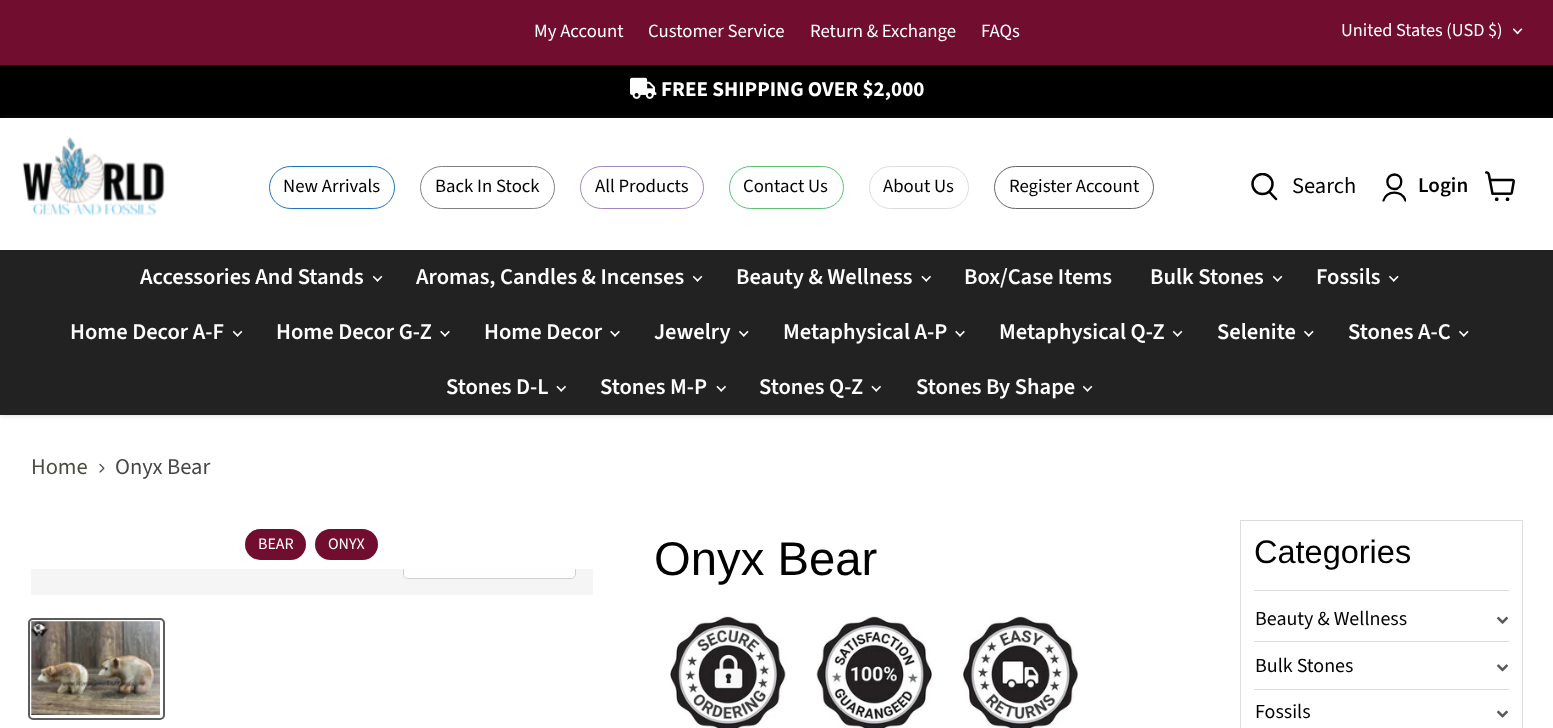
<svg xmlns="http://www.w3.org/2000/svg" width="1553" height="728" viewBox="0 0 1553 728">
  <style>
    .t1 { font: 18.75px Source Sans Pro; fill: #fff; }
    .t2 { font: 18.25px Source Sans Pro; fill: #fff; }
    .t3 { font: bold 21.1px Source Sans Pro; fill: #fff; }
    .t4 { font: 18.75px Source Sans Pro; fill: #000; }
    .t5 { font: 22.5px Source Sans Pro; fill: #000; }
    .t6 { font: 600 21.1px Source Sans Pro; fill: #000; }
    .t7 { font: 600 22.5px Source Sans Pro; fill: #fff; }
    .t8 { font: 22.5px Source Sans Pro; fill: #494d41; }
    .t9 { font: 22.5px Source Sans Pro; fill: #464646; }
    .t10 { font: 16px Source Sans Pro; fill: #fff; }
    .t11 { font: 47.25px Arimo; fill: #000; }
    .t12 { font: 32.5px Arimo; fill: #000; }
    .t13 { font: 20px Source Sans Pro; fill: #000; }
  </style>
  <defs>
    <clipPath id="clip1"><path d="M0 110H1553V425H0ZM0 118H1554V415H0Z" clip-rule="evenodd"/></clipPath>
    <clipPath id="clip2"><rect x="1250" y="173" width="29" height="30"/></clipPath>
    <clipPath id="clip3"><rect x="1381" y="173" width="25" height="30"/></clipPath>
    <clipPath id="clip4"><rect x="31" y="569" width="562" height="26"/></clipPath>
  </defs>
  <rect width="100%" height="100%" fill="#fff"/>
  <rect x="0" y="0" width="1553" height="65" fill="#710d2e"/>
  <text x="534" y="37" class="t1">My Account</text>
  <text x="648" y="37" class="t1">Customer Service</text>
  <text x="810" y="37" class="t1">Return &amp; Exchange</text>
  <text x="981" y="37" class="t1">FAQs</text>
  <text x="1341" y="36" class="t2">United States (USD $)</text>
  <image x="1513" y="28" width="10" height="7" href="images/1.png"/>
  <rect x="0" y="65" width="1553" height="53" fill="#000"/>
  <image x="630" y="77" width="27" height="22" href="images/2.png"/>
  <text x="661" y="96" class="t3">FREE SHIPPING OVER $2,000</text>
  <g clip-path="url(#clip1)">
    <rect x="0" y="119" width="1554" height="297" fill="#80808040" filter="blur(2.5px)"/>
  </g>
  <image x="22" y="137" width="143" height="79" href="images/3.png"/>
  <rect x="269.5" y="166.5" width="125" height="42" rx="21" fill="none" stroke="#1c73c0"/>
  <text x="283" y="192" class="t4">New Arrivals</text>
  <rect x="420.5" y="166.5" width="134" height="42" rx="21" fill="none" stroke="#818085"/>
  <text x="435" y="192" class="t4">Back In Stock</text>
  <rect x="580.5" y="166.5" width="123" height="42" rx="21" fill="none" stroke="#a087be"/>
  <text x="595" y="192" class="t4">All Products</text>
  <rect x="729.5" y="166.5" width="114" height="42" rx="21" fill="none" stroke="#5ac172"/>
  <text x="743" y="192" class="t4">Contact Us</text>
  <rect x="869.5" y="166.5" width="99" height="42" rx="21" fill="none" stroke="#ddd"/>
  <text x="883" y="192" class="t4">About Us</text>
  <rect x="994.5" y="166.5" width="159" height="42" rx="21" fill="none" stroke="#666"/>
  <text x="1009" y="192" class="t4">Register Account</text>
  <path d="M1276 199L1269.5 192" fill="none" stroke="#000" stroke-width="2.5" stroke-linecap="round"/>
  <g clip-path="url(#clip2)">
    <circle cx="1262.5" cy="184" r="10" fill="none" stroke="#000" stroke-width="2.5"/>
  </g>
  <text x="1292" y="193" class="t5">Search</text>
  <path d="M1394.5 189C1403.5 189 1403.5 174.5 1394.5 174.5C1385 174.5 1385 189 1394.5 189Z" fill="none" stroke="#000" stroke-width="2.3" stroke-linecap="round" stroke-linejoin="round"/>
  <g clip-path="url(#clip3)">
    <path d="M1405.5 200.5C1401.5 190 1387 190 1383.5 200.5" fill="none" stroke="#000" stroke-width="2.3" stroke-linecap="round" stroke-linejoin="round"/>
  </g>
  <text x="1418" y="192" class="t6">Login</text>
  <image x="1485" y="171" width="30" height="30" href="images/4.png"/>
  <rect x="0" y="250" width="1553" height="165" fill="#222"/>
  <text x="140" y="284" class="t7">Accessories And Stands</text>
  <image x="373" y="275" width="10" height="7" href="images/5.png"/>
  <text x="416" y="284" class="t7">Aromas, Candles &amp; Incenses</text>
  <image x="693" y="275" width="10" height="7" href="images/5.png"/>
  <text x="736" y="284" class="t7">Beauty &amp; Wellness</text>
  <image x="921" y="275" width="10" height="7" href="images/6.png"/>
  <text x="964" y="284" class="t7">Box/Case Items</text>
  <text x="1150" y="284" class="t7">Bulk Stones</text>
  <image x="1273" y="275" width="10" height="7" href="images/5.png"/>
  <text x="1316" y="284" class="t7">Fossils</text>
  <image x="1389" y="275" width="10" height="7" href="images/7.png"/>
  <text x="70" y="339" class="t7">Home Decor A-F</text>
  <image x="233" y="330" width="10" height="7" href="images/5.png"/>
  <text x="276" y="339" class="t7">Home Decor G-Z</text>
  <image x="440" y="330" width="10" height="7" href="images/8.png"/>
  <text x="484" y="339" class="t7">Home Decor</text>
  <image x="610" y="330" width="10" height="7" href="images/8.png"/>
  <text x="654" y="339" class="t7">Jewelry</text>
  <image x="739" y="330" width="10" height="7" href="images/7.png"/>
  <text x="783" y="339" class="t7">Metaphysical A-P</text>
  <image x="955" y="330" width="10" height="7" href="images/8.png"/>
  <text x="999" y="339" class="t7">Metaphysical Q-Z</text>
  <image x="1173" y="330" width="10" height="7" href="images/5.png"/>
  <text x="1217" y="339" class="t7">Selenite</text>
  <image x="1304" y="330" width="10" height="7" href="images/7.png"/>
  <text x="1348" y="339" class="t7">Stones A-C</text>
  <image x="1459" y="330" width="10" height="7" href="images/7.png"/>
  <text x="446" y="394" class="t7">Stones D-L</text>
  <image x="556" y="385" width="10" height="7" href="images/6.png"/>
  <text x="600" y="394" class="t7">Stones M-P</text>
  <image x="716" y="385" width="10" height="7" href="images/6.png"/>
  <text x="759" y="394" class="t7">Stones Q-Z</text>
  <image x="871" y="385" width="10" height="7" href="images/6.png"/>
  <text x="916" y="394" class="t7">Stones By Shape</text>
  <image x="1083" y="385" width="10" height="7" href="images/5.png"/>
  <text x="31" y="474" class="t8">Home</text>
  <image x="99" y="463" width="6" height="10" href="images/9.png"/>
  <text x="115" y="474" class="t9">Onyx Bear</text>
  <rect x="245" y="529" width="61" height="31" rx="15.5" fill="#710d2e"/>
  <text x="258" y="549" class="t10">BEAR</text>
  <rect x="315" y="529" width="63" height="31" rx="15.5" fill="#710d2e"/>
  <text x="328" y="549" class="t10">ONYX</text>
  <rect x="31" y="569" width="562" height="26" fill="#f5f5f5"/>
  <g clip-path="url(#clip4)">
    <rect x="403.5" y="539.5" width="172" height="39" rx="4.5" fill="none" stroke="#d0d0d0"/>
  </g>
  <path d="M404 569H575V574C575 576 573 578 571 578H408C406 578 404 576 404 574Z" fill="#ffffffe6"/>
  <rect x="29" y="619" width="135" height="100" rx="4" fill="none" stroke="#5c5c5c" stroke-width="2"/>
  <image x="31" y="621" width="129" height="94" href="images/10.png"/>
  <text x="654" y="575" class="t11">Onyx Bear</text>
  <image x="670" y="616" width="409" height="112" href="images/11.png"/>
  <rect x="1240.5" y="520.5" width="282" height="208" fill="none" stroke="#ddd"/>
  <rect x="1254" y="590" width="255" height="1" fill="#ddd"/>
  <text x="1254" y="563" class="t12">Categories</text>
  <rect x="1254" y="641" width="255" height="1" fill="#ddd"/>
  <text x="1255" y="625" class="t13">Beauty &amp; Wellness</text>
  <image x="1496" y="616" width="13" height="8" href="images/12.png"/>
  <rect x="1254" y="689" width="255" height="1" fill="#ddd"/>
  <text x="1255" y="672" class="t13">Bulk Stones</text>
  <image x="1496" y="664" width="13" height="8" href="images/13.png"/>
  <text x="1255" y="718" class="t13">Fossils</text>
  <image x="1496" y="710" width="13" height="8" href="images/14.png"/>
</svg>
